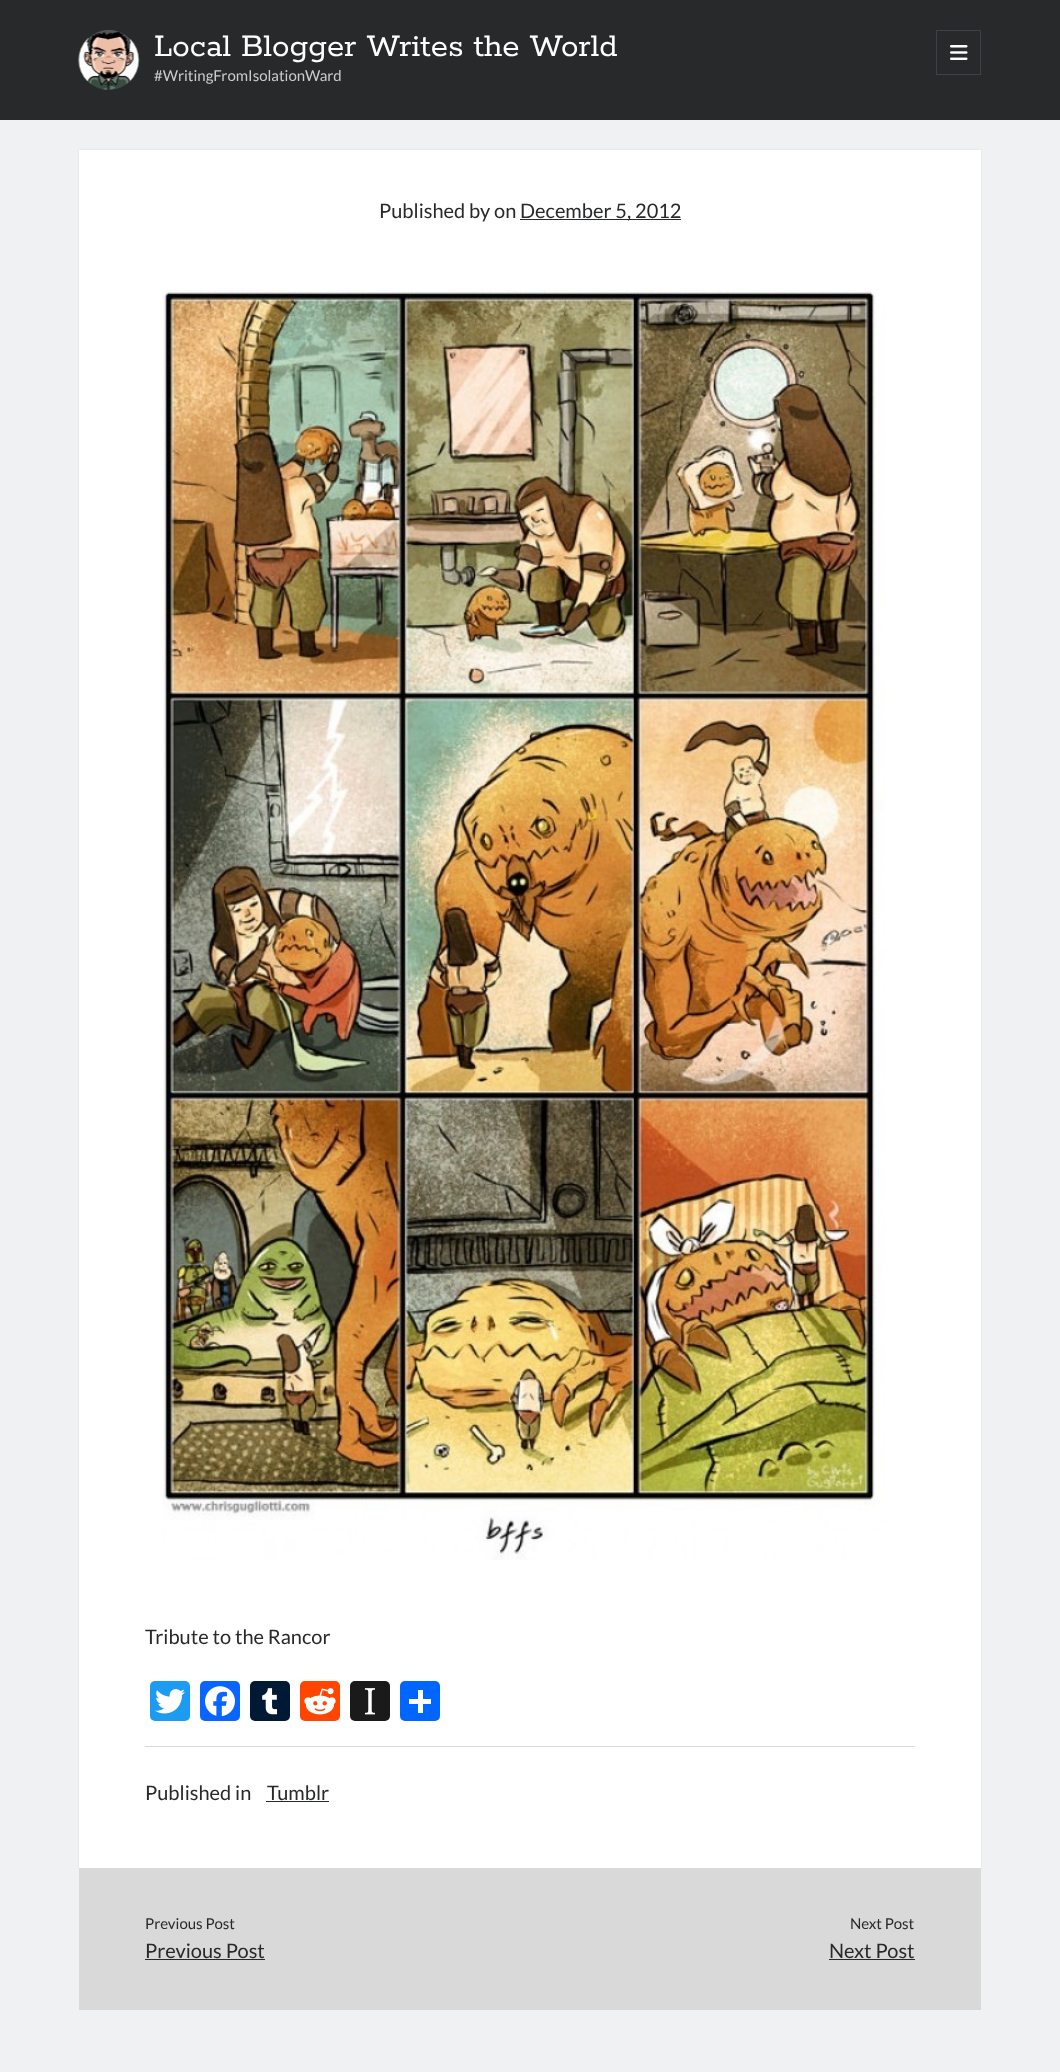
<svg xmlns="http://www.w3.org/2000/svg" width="1060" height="2072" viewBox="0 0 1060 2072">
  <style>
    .t1 { font: 35px Rokkitt; fill: #fff; }
    .t2 { font: 15px Lato; fill: #ccc; }
    .t3 { font: 20px Lato; fill: #27292b; }
    .t4 { font: 15px Lato; fill: #27292b; }
  </style>
  <rect width="100%" height="100%" fill="#27292b"/>
  <image x="78" y="30" width="62" height="60" href="images/1.png"/>
  <text x="154" y="56" class="t1">Local Blogger Writes the World</text>
  <text x="154" y="81" class="t2">#WritingFromIsolationWard</text>
  <rect x="936.5" y="30.5" width="44" height="44" fill="none" stroke="#3e4145"/>
  <image x="950" y="45" width="18" height="15" href="images/2.png"/>
  <rect x="0" y="120" width="1060" height="1952" fill="#f0f1f2"/>
  <rect x="79" y="150" width="902" height="1718" fill="#272b2f1a" filter="blur(1px)"/>
  <rect x="79" y="150" width="902" height="1718" fill="#fff"/>
  <text x="379" y="218" class="t3">Published by on</text>
  <rect x="520" y="219" width="161" height="1" fill="#27292b"/>
  <text x="520" y="218" class="t3">December 5, 2012</text>
  <rect x="145" y="1746" width="770" height="1" fill="#d9d9d9"/>
  <image x="162" y="290" width="723" height="1270" href="images/3.png"/>
  <text x="145" y="1644" class="t3">Tribute to the Rancor</text>
  <rect x="150" y="1681" width="40" height="40" rx="5" fill="#1d9bf0"/>
  <image x="155" y="1689" width="30" height="25" href="images/4.png"/>
  <rect x="200" y="1681" width="40" height="40" rx="5" fill="#0866ff"/>
  <image x="205" y="1686" width="30" height="31" href="images/5.png"/>
  <rect x="250" y="1681" width="40" height="40" rx="5" fill="#001935"/>
  <image x="262" y="1688" width="16" height="27" href="images/6.png"/>
  <rect x="300" y="1681" width="40" height="40" rx="5" fill="#ff4500"/>
  <image x="304" y="1688" width="32" height="27" href="images/7.png"/>
  <rect x="350" y="1681" width="40" height="40" rx="5" fill="#1a1a1a"/>
  <image x="364" y="1688" width="11" height="27" href="images/8.png"/>
  <rect x="400" y="1681" width="40" height="40" rx="5" fill="#0166ff"/>
  <rect x="418" y="1690" width="5" height="23" fill="#fff"/>
  <rect x="409" y="1699" width="22" height="5" fill="#fff"/>
  <text x="145" y="1800" class="t3">Published in</text>
  <text x="267" y="1800" class="t3">Tumblr</text>
  <rect x="266" y="1801" width="63" height="1" fill="#27292b"/>
  <rect x="79" y="1868" width="902" height="142" fill="#d9d9d9"/>
  <text x="145" y="1929" class="t4">Previous Post</text>
  <text x="145" y="1958" class="t3">Previous Post</text>
  <rect x="145" y="1959" width="120" height="1" fill="#27292b"/>
  <text x="850" y="1929" class="t4">Next Post</text>
  <text x="829" y="1958" class="t3">Next Post</text>
  <rect x="829" y="1959" width="86" height="1" fill="#27292b"/>
</svg>
